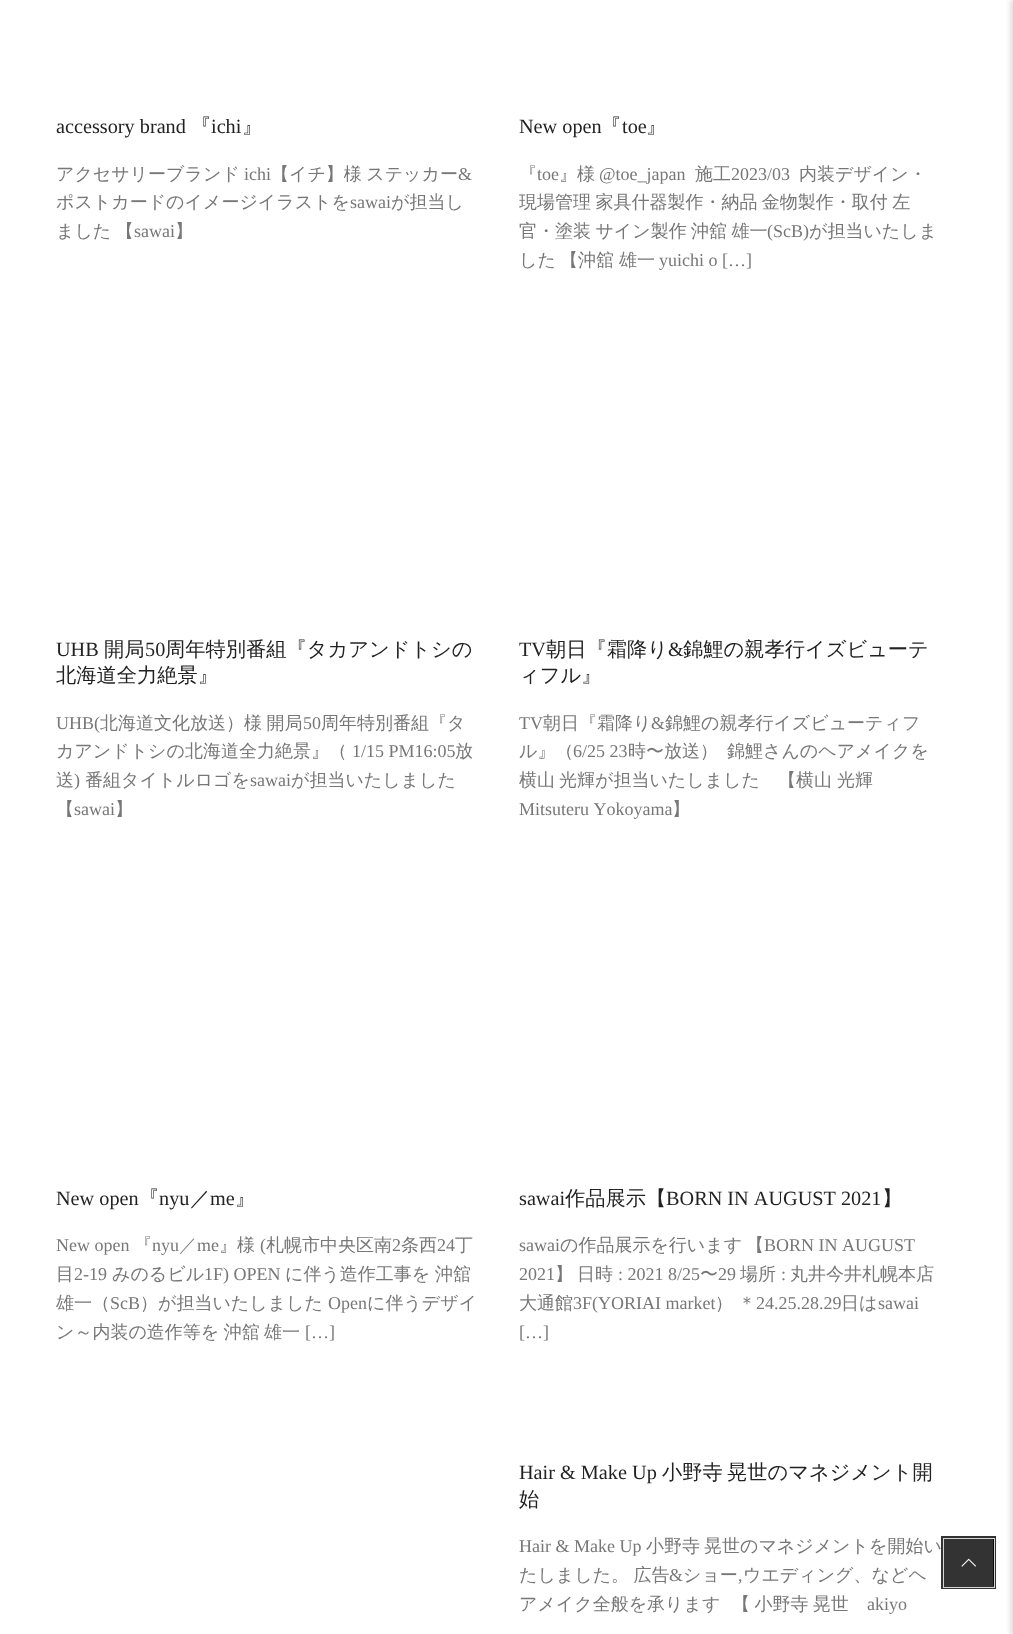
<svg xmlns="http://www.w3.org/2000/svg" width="1013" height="1634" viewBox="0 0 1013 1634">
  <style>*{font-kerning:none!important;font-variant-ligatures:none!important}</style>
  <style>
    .t1 { font: 20.25px Liberation Serif; fill: #222; }
    .t2 { font: 500 20.25px WenQuanYi Zen Hei; fill: #222; }
    .t3 { font: 500 18px WenQuanYi Zen Hei; fill: #777; }
    .t4 { font: 18px Liberation Serif; fill: #777; }
  </style>
  <rect width="100%" height="100%" fill="#fff"/>
  <text x="56" y="133" class="t1">accessory brand</text>
  <text x="191" y="133" class="t2">『</text>
  <text x="211" y="133" class="t1">ichi</text>
  <text x="242" y="133" class="t2">』</text>
  <text x="56" y="180" class="t3">アクセサリーブランド</text>
  <text x="244" y="180" class="t4">ichi</text>
  <text x="271" y="180" word-spacing="-1" class="t3">【イチ】様 ステッカー</text>
  <text x="458" y="180" class="t4">&amp;</text>
  <text x="56" y="208" class="t3">ポストカードのイメージイラストを</text>
  <text x="350" y="208" class="t4">sawai</text>
  <text x="391" y="208" class="t3">が担当し</text>
  <text x="56" y="237" word-spacing="-1" class="t3">ました 【</text>
  <text x="134" y="237" class="t4">sawai</text>
  <text x="175" y="237" class="t3">】</text>
  <text x="519" y="133" class="t1">New open</text>
  <text x="601" y="133" class="t2">『</text>
  <text x="622" y="133" class="t1">toe</text>
  <text x="646" y="133" class="t2">』</text>
  <text x="519" y="180" class="t3">『</text>
  <text x="537" y="180" class="t4">toe</text>
  <text x="559" y="180" class="t3">』様</text>
  <text x="599" y="180" class="t4"> @toe_japan</text>
  <text x="695" y="180" class="t3">施工</text>
  <text x="731" y="180" class="t4">2023/03 </text>
  <text x="799" y="180" class="t3">内装デザイン・</text>
  <text x="519" y="208" word-spacing="-1" class="t3">現場管理 家具什器製作・納品 金物製作・取付 左</text>
  <text x="519" y="237" word-spacing="-1" class="t3">官・塗装 サイン製作</text>
  <text x="691" y="237" word-spacing="-1" class="t3">沖舘 雄一</text>
  <text x="767" y="237" class="t4">(ScB)</text>
  <text x="809" y="237" class="t3">が担当いたしま</text>
  <text x="519" y="266" class="t3">した</text>
  <text x="560" y="266" class="t3">【沖舘</text>
  <text x="619" y="266" class="t3">雄一</text>
  <text x="659" y="266" class="t4">yuichi o […]</text>
  <text x="56" y="656" class="t1">UHB</text>
  <text x="104" y="656" class="t2">開局</text>
  <text x="145" y="656" class="t1">50</text>
  <text x="165" y="656" class="t2">周年特別番組『タカアンドトシの</text>
  <text x="56" y="682" class="t2">北海道全力絶景』</text>
  <text x="56" y="729" class="t4">UHB(</text>
  <text x="100" y="729" word-spacing="-1" class="t3">北海道文化放送）様 開局</text>
  <text x="303" y="729" class="t4">50</text>
  <text x="321" y="729" class="t3">周年特別番組『タ</text>
  <text x="56" y="757" class="t3">カアンドトシの北海道全力絶景』（</text>
  <text x="352" y="757" class="t4">1/15 PM16:05</text>
  <text x="455" y="757" class="t3">放</text>
  <text x="56" y="786" class="t3">送</text>
  <text x="74" y="786" class="t4">)</text>
  <text x="85" y="786" class="t3">番組タイトルロゴを</text>
  <text x="250" y="786" class="t4">sawai</text>
  <text x="291" y="786" class="t3">が担当いたしました</text>
  <text x="56" y="815" class="t3">【</text>
  <text x="74" y="815" class="t4">sawai</text>
  <text x="115" y="815" class="t3">】</text>
  <text x="519" y="656" class="t1">TV</text>
  <text x="546" y="656" class="t2">朝日『霜降り</text>
  <text x="668" y="656" class="t1">&amp;</text>
  <text x="683" y="656" class="t2">錦鯉の親孝行イズビューテ</text>
  <text x="519" y="682" class="t2">ィフル』</text>
  <text x="519" y="729" class="t4">TV</text>
  <text x="543" y="729" class="t3">朝日『霜降り</text>
  <text x="651" y="729" class="t4">&amp;</text>
  <text x="665" y="729" class="t3">錦鯉の親孝行イズビューティフ</text>
  <text x="519" y="757" class="t3">ル』（</text>
  <text x="573" y="757" class="t4">6/25 23</text>
  <text x="628" y="757" class="t3">時〜放送）</text>
  <text x="727" y="757" class="t3">錦鯉さんのヘアメイクを</text>
  <text x="519" y="786" class="t3">横山</text>
  <text x="559" y="786" class="t3">光輝が担当いたしました</text>
  <text x="778" y="786" class="t3">【横山</text>
  <text x="837" y="786" class="t3">光輝</text>
  <text x="519" y="815" class="t4">Mitsuteru Yokoyama</text>
  <text x="672" y="815" class="t3">】</text>
  <text x="56" y="1205" class="t1">New open</text>
  <text x="139" y="1205" class="t2">『</text>
  <text x="159" y="1205" class="t1">nyu</text>
  <text x="190" y="1205" class="t2">／</text>
  <text x="210" y="1205" class="t1">me</text>
  <text x="235" y="1205" class="t2">』</text>
  <text x="56" y="1251" class="t4">New open</text>
  <text x="134" y="1251" class="t3">『</text>
  <text x="152" y="1251" class="t4">nyu</text>
  <text x="179" y="1251" class="t3">／</text>
  <text x="197" y="1251" class="t4">me</text>
  <text x="219" y="1251" class="t3">』様</text>
  <text x="260" y="1251" class="t4">(</text>
  <text x="266" y="1251" class="t3">札幌市中央区南</text>
  <text x="392" y="1251" class="t4">2</text>
  <text x="401" y="1251" class="t3">条西</text>
  <text x="437" y="1251" class="t4">24</text>
  <text x="455" y="1251" class="t3">丁</text>
  <text x="56" y="1280" class="t3">目</text>
  <text x="74" y="1280" class="t4">2-19</text>
  <text x="112" y="1280" class="t3">みのるビル</text>
  <text x="204" y="1280" class="t4">1F)  OPEN</text>
  <text x="285" y="1280" class="t3">に伴う造作工事を</text>
  <text x="435" y="1280" class="t3">沖舘</text>
  <text x="56" y="1309" class="t3">雄一（</text>
  <text x="110" y="1309" class="t4">ScB</text>
  <text x="140" y="1309" class="t3">）が担当いたしました</text>
  <text x="328" y="1309" class="t4">Open</text>
  <text x="367" y="1309" class="t3">に伴うデザイ</text>
  <text x="56" y="1338" word-spacing="-1" class="t3">ン～内装の造作等を 沖舘 雄一</text>
  <text x="305" y="1338" class="t4">[…]</text>
  <text x="519" y="1205" class="t1">sawai</text>
  <text x="565" y="1205" class="t2">作品展示【</text>
  <text x="666" y="1205" class="t1">BORN IN AUGUST 2021</text>
  <text x="882" y="1205" class="t2">】</text>
  <text x="519" y="1251" class="t4">sawai</text>
  <text x="560" y="1251" class="t3">の作品展示を行います</text>
  <text x="746" y="1251" class="t3">【</text>
  <text x="764" y="1251" class="t4">BORN IN AUGUST</text>
  <text x="519" y="1280" class="t4">2021</text>
  <text x="555" y="1280" class="t3">】</text>
  <text x="577" y="1280" class="t3">日時</text>
  <text x="618" y="1280" class="t4">: 2021 8/25</text>
  <text x="700" y="1280" class="t3">〜</text>
  <text x="718" y="1280" class="t4">29</text>
  <text x="740" y="1280" class="t3">場所</text>
  <text x="781" y="1280" class="t4">:</text>
  <text x="790" y="1280" class="t3">丸井今井札幌本店</text>
  <text x="519" y="1309" class="t3">大通館</text>
  <text x="573" y="1309" class="t4">3F(YORIAI market</text>
  <text x="715" y="1309" class="t3">）</text>
  <text x="738" y="1309" class="t3">＊</text>
  <text x="756" y="1309" class="t4">24.25.28.29</text>
  <text x="841" y="1309" class="t3">日は</text>
  <text x="878" y="1309" class="t4">sawai</text>
  <text x="519" y="1338" class="t4">[…]</text>
  <text x="519" y="1479" class="t1">Hair &amp; Make Up</text>
  <text x="662" y="1479" class="t2">小野寺</text>
  <text x="727" y="1479" class="t2">晃世のマネジメント開</text>
  <text x="519" y="1506" class="t2">始</text>
  <text x="519" y="1552" class="t4">Hair &amp; Make Up</text>
  <text x="646" y="1552" class="t3">小野寺</text>
  <text x="704" y="1552" class="t3">晃世のマネジメントを開始い</text>
  <text x="519" y="1581" word-spacing="-1" class="t3">たしました。 広告</text>
  <text x="669" y="1581" class="t4">&amp;</text>
  <text x="683" y="1581" class="t3">ショー</text>
  <text x="738" y="1581" class="t4">,</text>
  <text x="743" y="1581" class="t3">ウエディング、などヘ</text>
  <text x="519" y="1610" class="t3">アメイク全般を承ります</text>
  <text x="732" y="1610" word-spacing="-1" class="t3">【 小野寺 晃世</text>
  <text x="867" y="1610" class="t4">akiyo</text>
  <rect x="1010" y="0" width="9" height="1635" fill="#0000001f" filter="blur(2px)"/>
  <rect x="942.5" y="1537.5" width="52" height="50" fill="none" stroke="#333" stroke-width="3"/>
  <rect x="943.5" y="1538.5" width="51" height="49" fill="none" stroke="#d6d6d6"/>
  <rect x="944" y="1539" width="50" height="47" fill="#000000cc"/>
  <image x="961" y="1558" width="15" height="9" href="images/1.png"/>
</svg>
